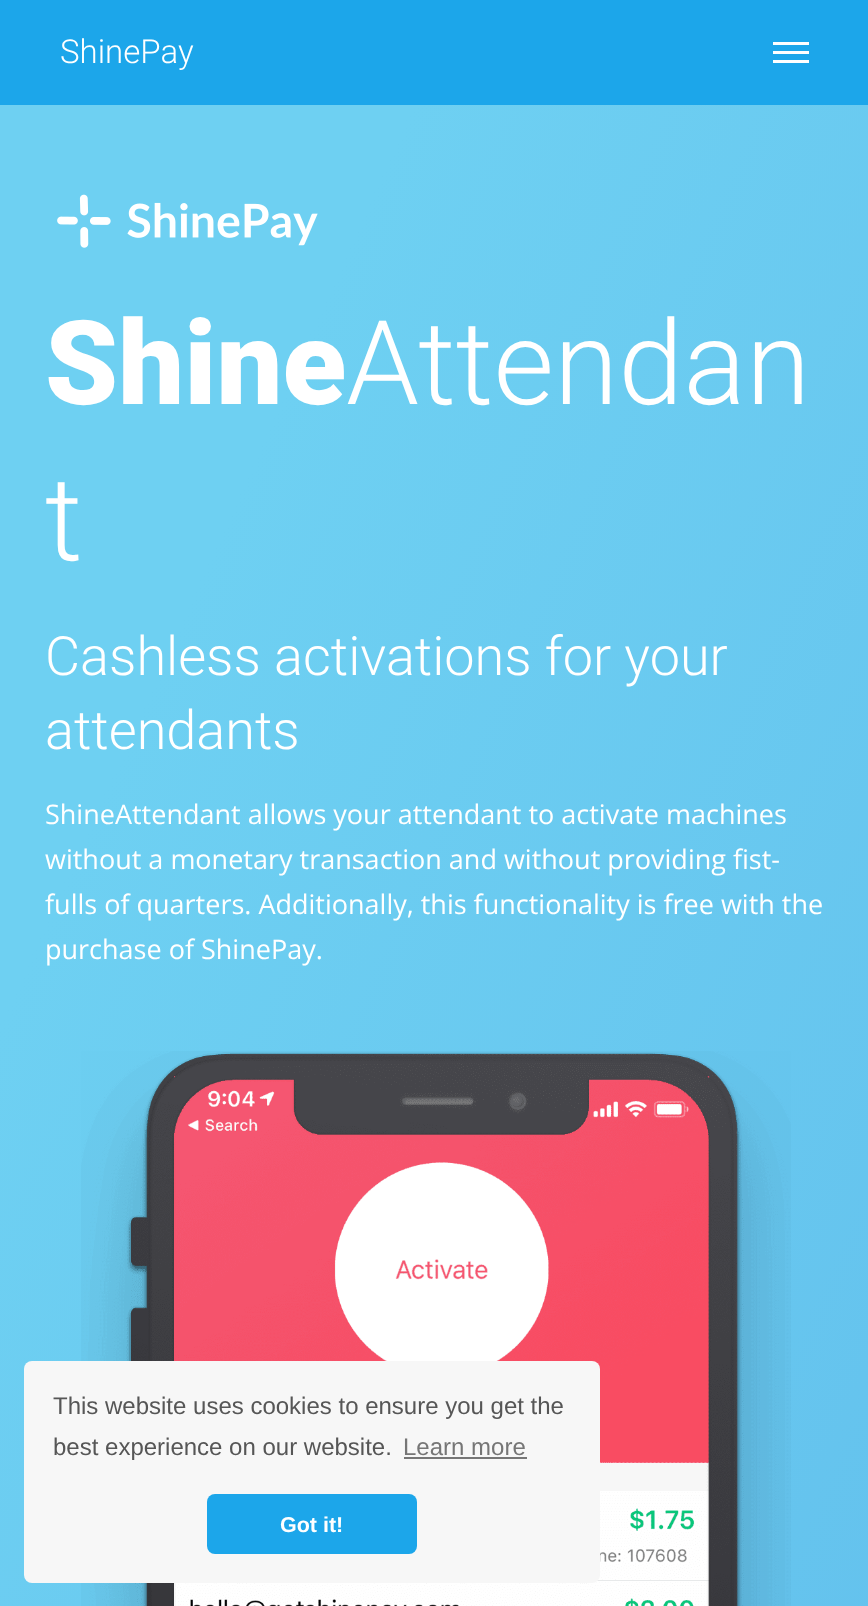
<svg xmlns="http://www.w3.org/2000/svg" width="868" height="1606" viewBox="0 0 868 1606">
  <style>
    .t1 { font: 300 33px Roboto; fill: #fff; }
    .t2 { font: 900 117px Roboto; fill: #fff; }
    .t3 { font: 300 117px Roboto; fill: #fff; }
    .t4 { font: 300 54px Roboto; fill: #fff; }
    .t5 { font: 27px Open Sans; fill: #fff; }
    .t6 { font: 24px Liberation Sans; fill: #565656; }
    .t7 { font: 24px Liberation Sans; fill: #767676; }
    .t8 { font: bold 21.5px Liberation Sans; fill: #fff; }
  </style>
  <defs>
    <linearGradient id="g1" gradientUnits="userSpaceOnUse" x1="0" y1="1024" x2="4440" y2="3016"><stop offset="0" stop-color="#6ed0f2"/><stop offset="0.67" stop-color="#4fa6e4"/><stop offset="1" stop-color="#1ca6ea"/></linearGradient>
  </defs>
  <rect width="100%" height="100%" fill="#fff"/>
  <rect x="0" y="0" width="868" height="105" fill="#1ca6ea"/>
  <text x="60" y="63" class="t1">ShinePay</text>
  <rect x="773" y="51" width="36" height="3" fill="#fff"/>
  <rect x="773" y="42" width="36" height="3" fill="#fff"/>
  <rect x="773" y="60" width="36" height="3" fill="#fff"/>
  <rect x="0" y="105" width="868" height="1501" fill="url(#g1)"/>
  <image x="57" y="194" width="261" height="54" href="images/1.png"/>
  <text x="45" y="404" class="t2">Shine</text>
  <text x="346" y="404" class="t3">Attendan</text>
  <text x="45" y="560" class="t3">t</text>
  <text x="45" y="675" class="t4">Cashless activations for your</text>
  <text x="45" y="749" class="t4">attendants</text>
  <text x="45" y="824" class="t5">ShineAttendant allows your attendant to activate machines</text>
  <text x="45" y="869" class="t5">without a monetary transaction and without providing fist-</text>
  <text x="45" y="914" class="t5">fulls of quarters. Additionally, this functionality is free with the</text>
  <text x="45" y="959" class="t5">purchase of ShinePay.</text>
  <image x="81" y="1051" width="710" height="555" href="images/2.png"/>
  <rect x="24" y="1361" width="576" height="222" rx="8" fill="#f7f7f7"/>
  <text x="53" y="1414" class="t6">This website uses cookies to ensure you get the</text>
  <text x="53" y="1455" class="t6">best experience on our website.</text>
  <text x="403" y="1455" class="t7">Learn more</text>
  <rect x="404" y="1457" width="123" height="2" fill="#767676"/>
  <rect x="207" y="1494" width="210" height="60" rx="8" fill="#1ca6ea"/>
  <text x="280" y="1532" class="t8">Got it!</text>
</svg>
